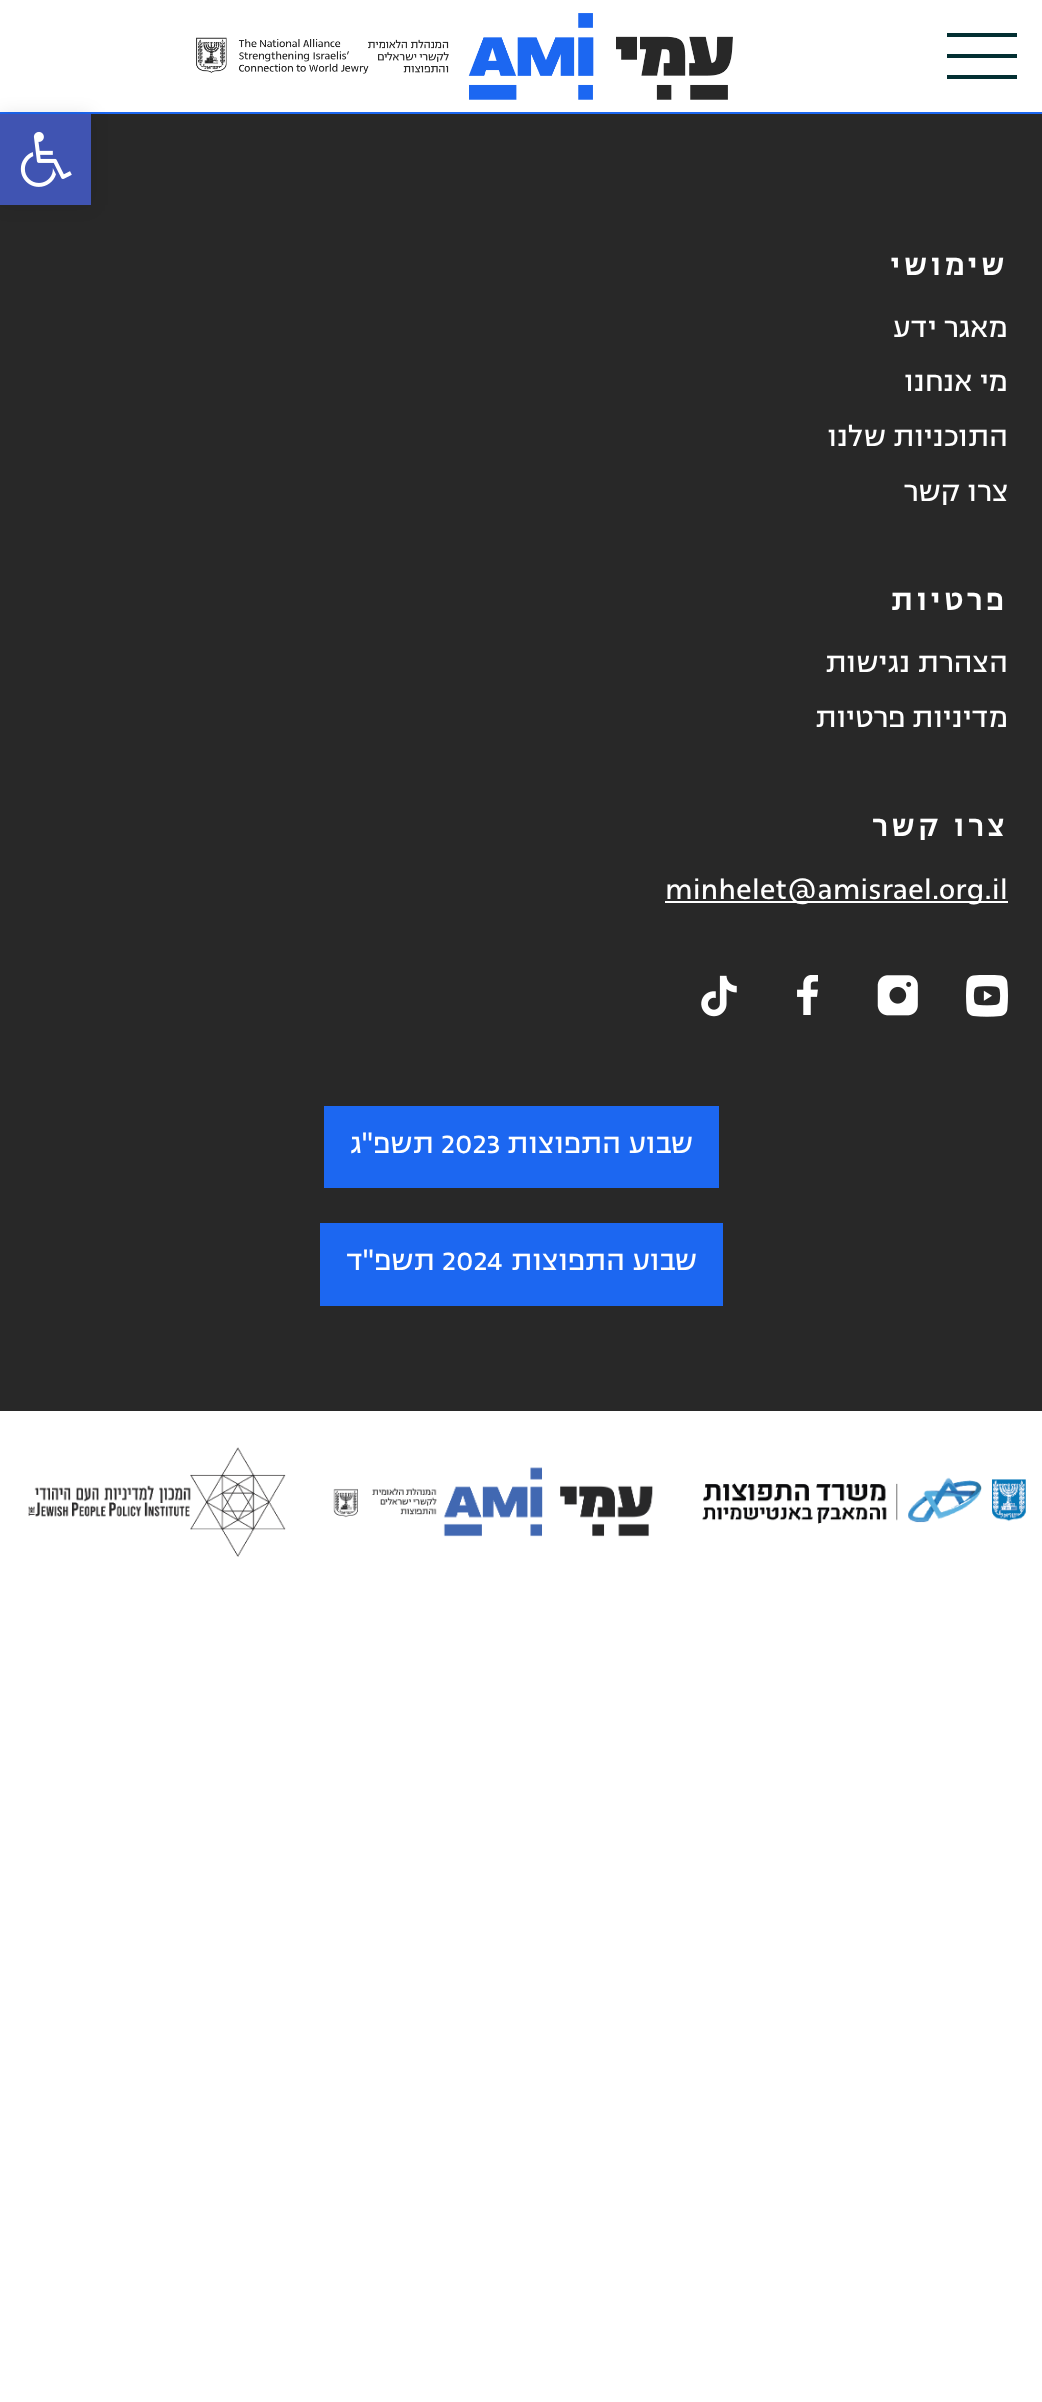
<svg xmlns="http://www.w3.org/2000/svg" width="1042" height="2402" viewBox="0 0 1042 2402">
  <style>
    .t1 { font: bold 31.5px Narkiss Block; letter-spacing: 4.5px; direction: rtl; fill: #fff; }
    .t2 { font: 31.5px Narkiss Block; direction: rtl; fill: #fff; }
    .t3 { font: 31.5px Narkiss Block; fill: #fff; }
  </style>
  <rect width="100%" height="100%" fill="#fff"/>
  <rect x="0" y="112" width="1042" height="2" fill="#1c67f1"/>
  <rect x="0" y="114" width="1042" height="1297" fill="#282828"/>
  <rect x="0" y="114" width="91" height="91" fill="#0000001a" filter="blur(9px)"/>
  <rect x="0" y="114" width="91" height="91" fill="#4054b2"/>
  <image x="20" y="131" width="52" height="56" href="images/1.png"/>
  <rect x="947" y="33" width="70" height="4" fill="#032f32"/>
  <rect x="947" y="54" width="70" height="4" fill="#032f32"/>
  <rect x="947" y="75" width="70" height="4" fill="#032f32"/>
  <image x="196" y="13" width="537" height="87" href="images/2.png"/>
  <text x="1008" y="275" class="t1">שימושי</text>
  <text x="1008" y="337" class="t2">מאגר ידע</text>
  <text x="1008" y="391" class="t2">מי אנחנו</text>
  <text x="1008" y="446" class="t2">התוכניות שלנו</text>
  <text x="1008" y="501" class="t2">צרו קשר</text>
  <text x="1008" y="610" class="t1">פרטיות</text>
  <text x="1008" y="672" class="t2">הצהרת נגישות</text>
  <text x="1008" y="727" class="t2">מדיניות פרטיות</text>
  <text x="1008" y="836" class="t1">צרו קשר</text>
  <rect x="665" y="901" width="343" height="2" fill="#fff"/>
  <text x="665" y="899" class="t3">minhelet@amisrael.org.il</text>
  <image x="966" y="975" width="42" height="42" href="images/3.png"/>
  <image x="877" y="975" width="41" height="41" href="images/4.png"/>
  <image x="797" y="975" width="21" height="40" href="images/5.png"/>
  <image x="701" y="975" width="36" height="42" href="images/6.png"/>
  <rect x="324" y="1106" width="395" height="82" fill="#1c67f1"/>
  <text x="693" y="1153" class="t2">שבוע התפוצות</text>
  <text x="441" y="1153" class="t3">2023</text>
  <text x="434" y="1153" class="t2">תשפ"ג</text>
  <rect x="320" y="1223" width="403" height="83" fill="#1c67f1"/>
  <text x="697" y="1270" class="t2">שבוע התפוצות</text>
  <text x="442" y="1270" class="t3">2024</text>
  <text x="435" y="1270" class="t2">תשפ"ד</text>
  <image x="28" y="1447" width="998" height="110" href="images/7.png"/>
</svg>
